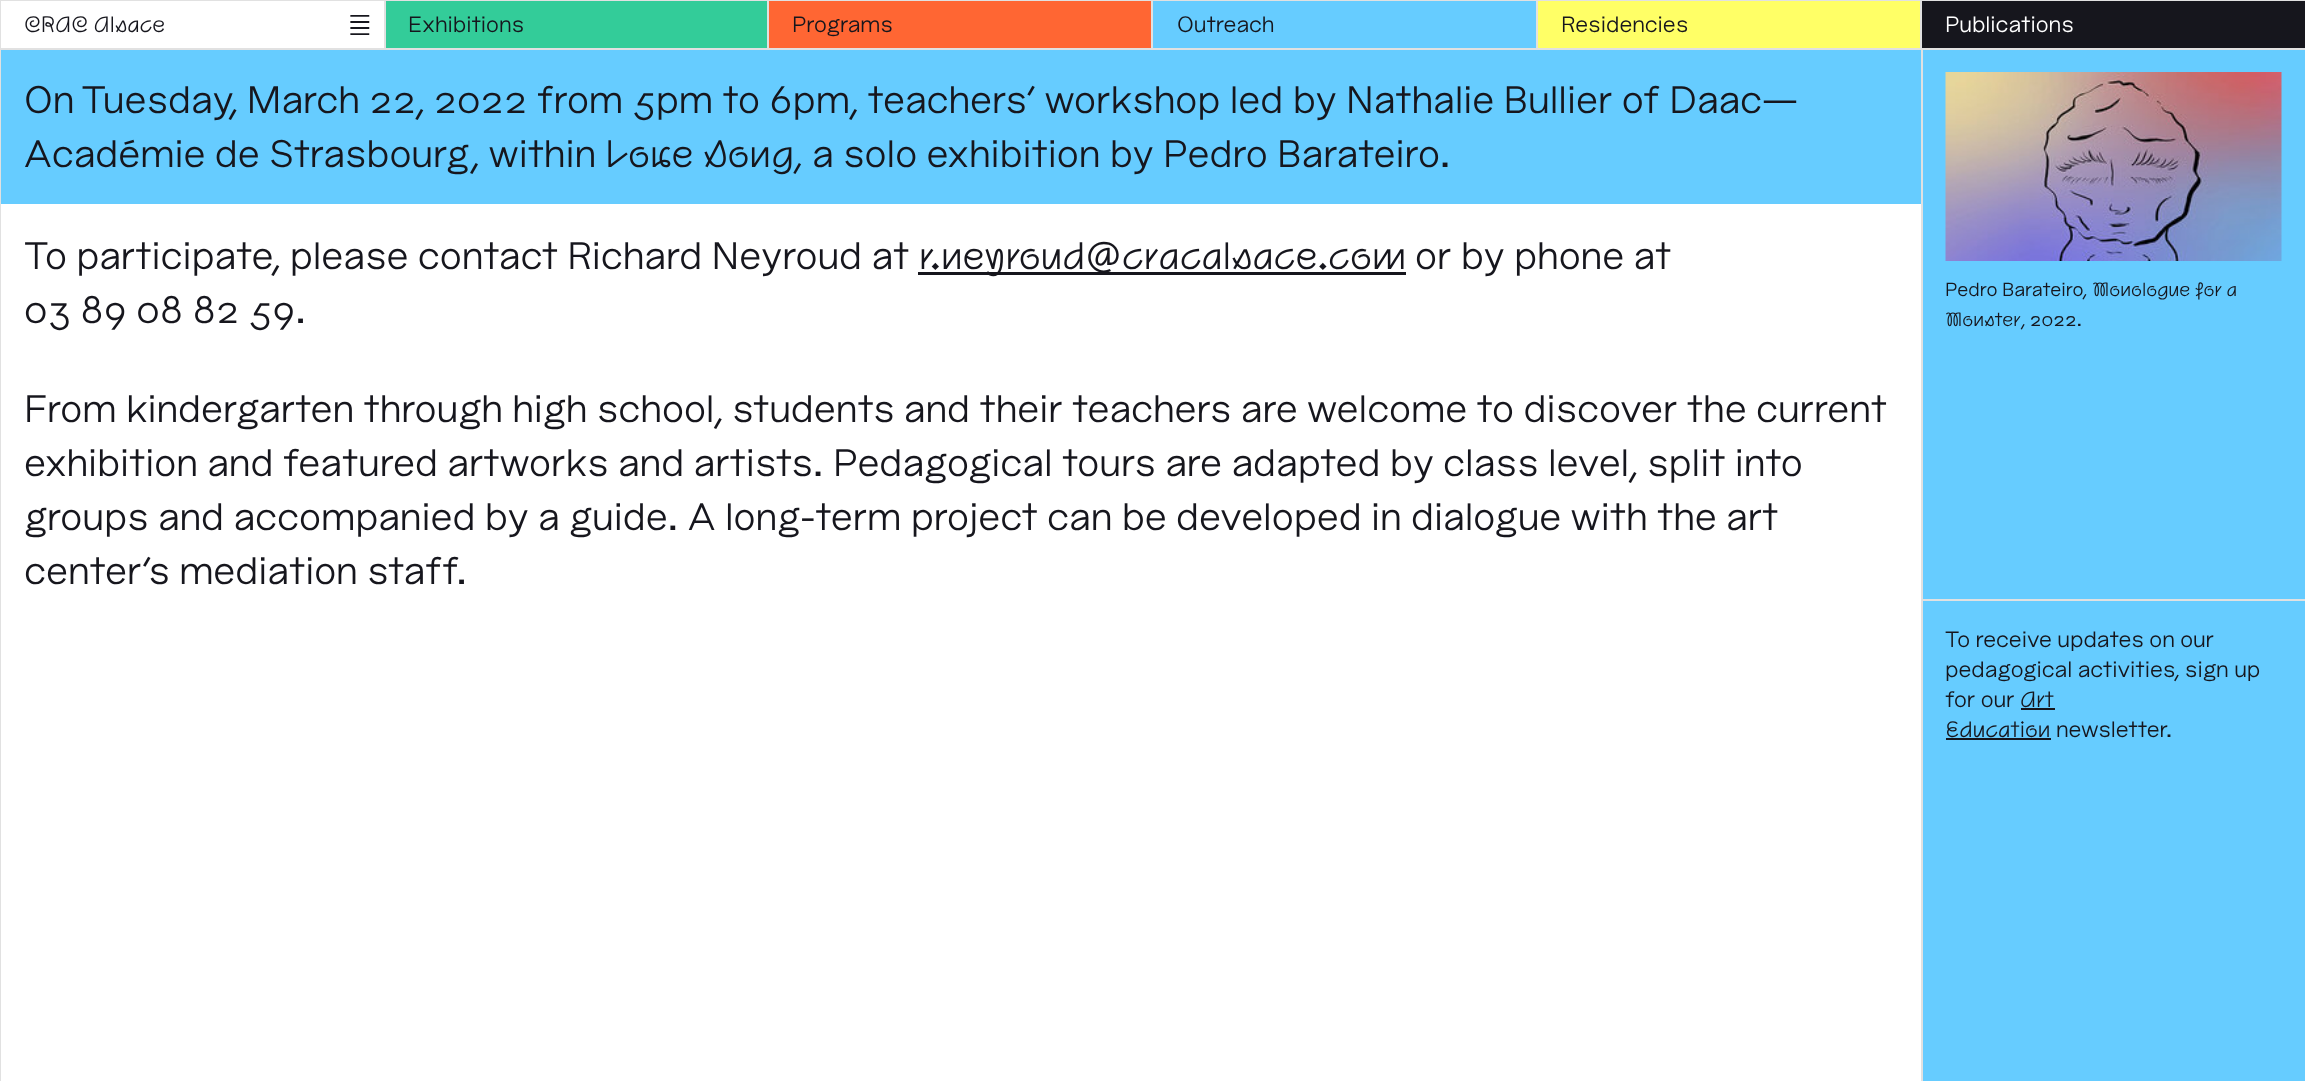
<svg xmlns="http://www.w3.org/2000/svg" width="2305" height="1081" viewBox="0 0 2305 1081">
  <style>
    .t1 { font: italic 21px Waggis; fill: #16161d; }
    .t2 { font: 27px Waggis; fill: #16161d; }
    .t3 { font: 21px Waggis; fill: #16161d; }
    .t4 { font: 21px Waggis; fill: #fff; }
    .t5 { font: 36px Waggis; fill: #16161d; }
    .t6 { font: italic 36px Waggis; fill: #16161d; }
    .t7 { font: 18px Waggis; fill: #16161d; }
    .t8 { font: italic 18px Waggis; fill: #16161d; }
  </style>
  <defs>
    <clipPath id="clip1"><rect x="0" y="0" width="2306" height="48"/></clipPath>
  </defs>
  <rect width="100%" height="100%" fill="#6cf"/>
  <rect x="2021" y="708" width="34" height="2" fill="#16161d"/>
  <rect x="1946" y="738" width="105" height="2" fill="#16161d"/>
  <rect x="1921" y="600" width="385" height="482" fill="none" stroke="#e1e1e1" stroke-width="2"/>
  <rect x="1" y="204" width="1920" height="877" fill="#fff"/>
  <rect x="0" y="48" width="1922" height="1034" fill="none" stroke="#e1e1e1" stroke-width="2"/>
  <rect x="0" y="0" width="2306" height="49" fill="none" stroke="#e1e1e1" stroke-width="2"/>
  <rect x="386" y="1" width="381" height="47" fill="#3c9"/>
  <g clip-path="url(#clip1)">
    <rect x="384" y="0" width="385" height="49" fill="none" stroke="#e1e1e1" stroke-width="2"/>
  </g>
  <rect x="1" y="1" width="383" height="47" fill="#fff"/>
  <g clip-path="url(#clip1)">
    <rect x="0" y="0" width="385" height="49" fill="none" stroke="#e1e1e1" stroke-width="2"/>
  </g>
  <text x="24" y="32" class="t1">CRAC Alsace</text>
  <text x="349" y="35" class="t2">☰</text>
  <text x="408" y="32" class="t3">Exhibitions</text>
  <rect x="769" y="1" width="382" height="47" fill="#f63"/>
  <g clip-path="url(#clip1)">
    <rect x="768" y="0" width="385" height="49" fill="none" stroke="#e1e1e1" stroke-width="2"/>
  </g>
  <text x="792" y="32" class="t3">Programs</text>
  <rect x="1153" y="1" width="383" height="47" fill="#6cf"/>
  <g clip-path="url(#clip1)">
    <rect x="1152" y="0" width="386" height="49" fill="none" stroke="#e1e1e1" stroke-width="2"/>
  </g>
  <text x="1177" y="32" class="t3">Outreach</text>
  <rect x="1538" y="1" width="382" height="47" fill="#ff6"/>
  <g clip-path="url(#clip1)">
    <rect x="1537" y="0" width="385" height="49" fill="none" stroke="#e1e1e1" stroke-width="2"/>
  </g>
  <text x="1561" y="32" class="t3">Residencies</text>
  <rect x="1922" y="1" width="383" height="47" fill="#16161d"/>
  <g clip-path="url(#clip1)">
    <rect x="1921" y="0" width="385" height="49" fill="none" stroke="#e1e1e1" stroke-width="2"/>
  </g>
  <text x="1945" y="32" class="t4">Publications</text>
  <text x="24" y="113" class="t5">On Tuesday, March 22, 2022 from 5pm to 6pm, teachers' workshop led by Nathalie Bullier of Daac—</text>
  <text x="24" y="167" class="t5">Académie de Strasbourg, within</text>
  <text x="605" y="167" class="t6">Love Song,</text>
  <text x="812" y="167" class="t5">a solo exhibition by Pedro Barateiro.</text>
  <text x="24" y="269" class="t5">To participate, please contact Richard Neyroud at</text>
  <rect x="918" y="272" width="488" height="3" fill="#16161d"/>
  <text x="919" y="269" class="t6">r.neyroud@cracalsace.com</text>
  <text x="1415" y="269" class="t5">or by phone at</text>
  <text x="24" y="323" class="t5">03 89 08 82 59.</text>
  <text x="24" y="422" class="t5">From kindergarten through high school, students and their teachers are welcome to discover the current</text>
  <text x="24" y="476" class="t5">exhibition and featured artworks and artists. Pedagogical tours are adapted by class level, split into</text>
  <text x="24" y="530" class="t5">groups and accompanied by a guide. A long-term project can be developed in dialogue with the art</text>
  <text x="24" y="584" class="t5">center's mediation staff.</text>
  <image x="1945" y="72" width="337" height="189" href="images/1.png"/>
  <text x="1945" y="296" class="t7">Pedro Barateiro,</text>
  <text x="2092" y="296" class="t8">Monologue for a</text>
  <text x="1945" y="326" class="t8">Monster</text>
  <text x="2021" y="326" class="t7">, 2022.</text>
  <text x="1945" y="647" class="t3">To receive updates on our</text>
  <text x="1945" y="677" class="t3">pedagogical activities, sign up</text>
  <text x="1945" y="707" class="t3">for our</text>
  <text x="2020" y="707" class="t1">Art</text>
  <text x="1945" y="737" class="t1">Education</text>
  <text x="2056" y="737" class="t3">newsletter.</text>
</svg>
